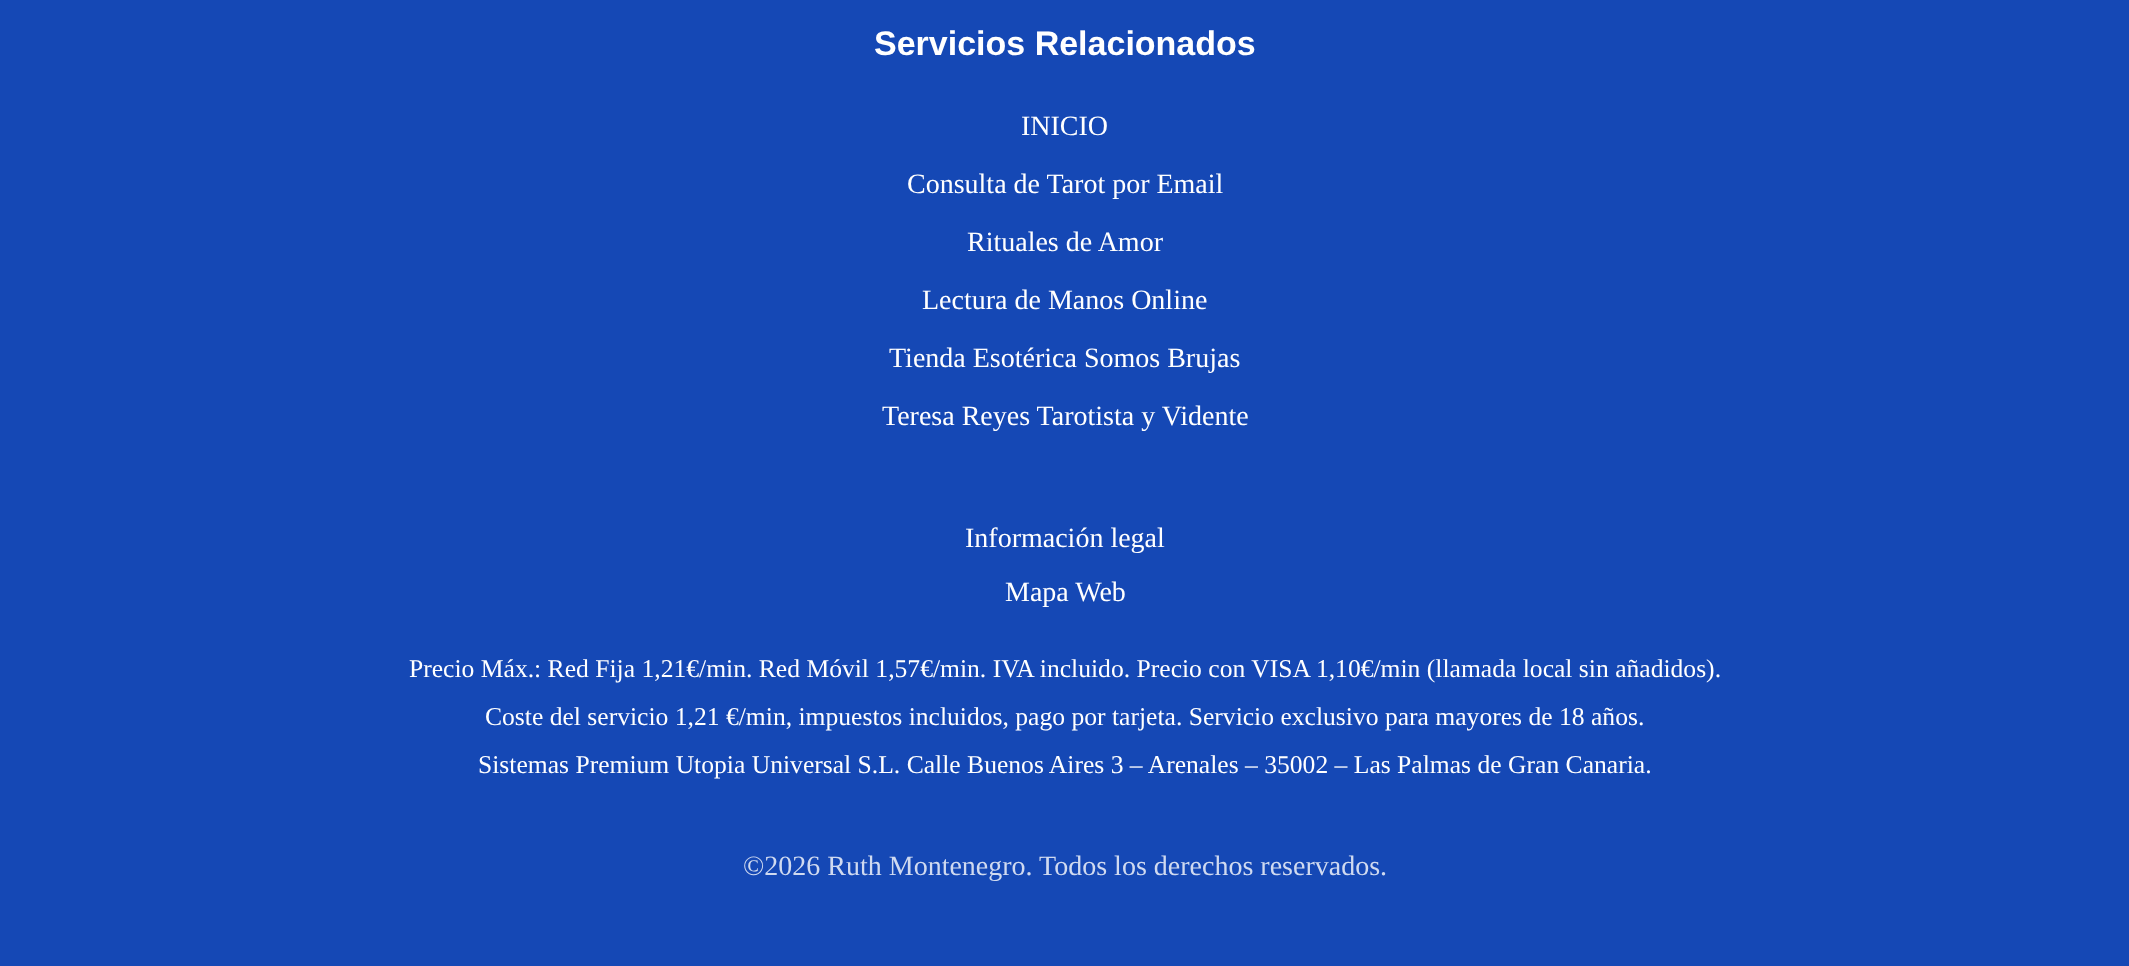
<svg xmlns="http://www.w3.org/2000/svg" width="2129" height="966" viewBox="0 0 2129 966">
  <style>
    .t1 { font: bold 34px Liberation Sans; fill: #fff; }
    .t2 { font: 28px Liberation Serif; fill: #fff; }
    .t3 { font: 25.6px Liberation Serif; fill: #fff; }
    .t4 { font: 28px Liberation Serif; fill: #d0daf0; }
  </style>
  <rect width="100%" height="100%" fill="#1548b5"/>
  <text x="874" y="55" class="t1">Servicios Relacionados</text>
  <text x="1021" y="135" class="t2">INICIO</text>
  <text x="907" y="193" class="t2">Consulta de Tarot por Email</text>
  <text x="967" y="251" class="t2">Rituales de Amor</text>
  <text x="922" y="309" class="t2">Lectura de Manos Online</text>
  <text x="889" y="367" class="t2">Tienda Esotérica Somos Brujas</text>
  <text x="882" y="425" class="t2">Teresa Reyes Tarotista y Vidente</text>
  <text x="965" y="547" class="t2">Información legal</text>
  <text x="1005" y="601" class="t2">Mapa Web</text>
  <text x="409" y="677" class="t3">Precio Máx.: Red Fija 1,21€/min. Red Móvil 1,57€/min. IVA incluido. Precio con VISA 1,10€/min (llamada local sin añadidos).</text>
  <text x="485" y="725" class="t3">Coste del servicio 1,21 €/min, impuestos incluidos, pago por tarjeta. Servicio exclusivo para mayores de 18 años.</text>
  <text x="478" y="773" class="t3">Sistemas Premium Utopia Universal S.L. Calle Buenos Aires 3 – Arenales – 35002 – Las Palmas de Gran Canaria.</text>
  <text x="743" y="875" class="t4">©2026 Ruth Montenegro. Todos los derechos reservados.</text>
</svg>
